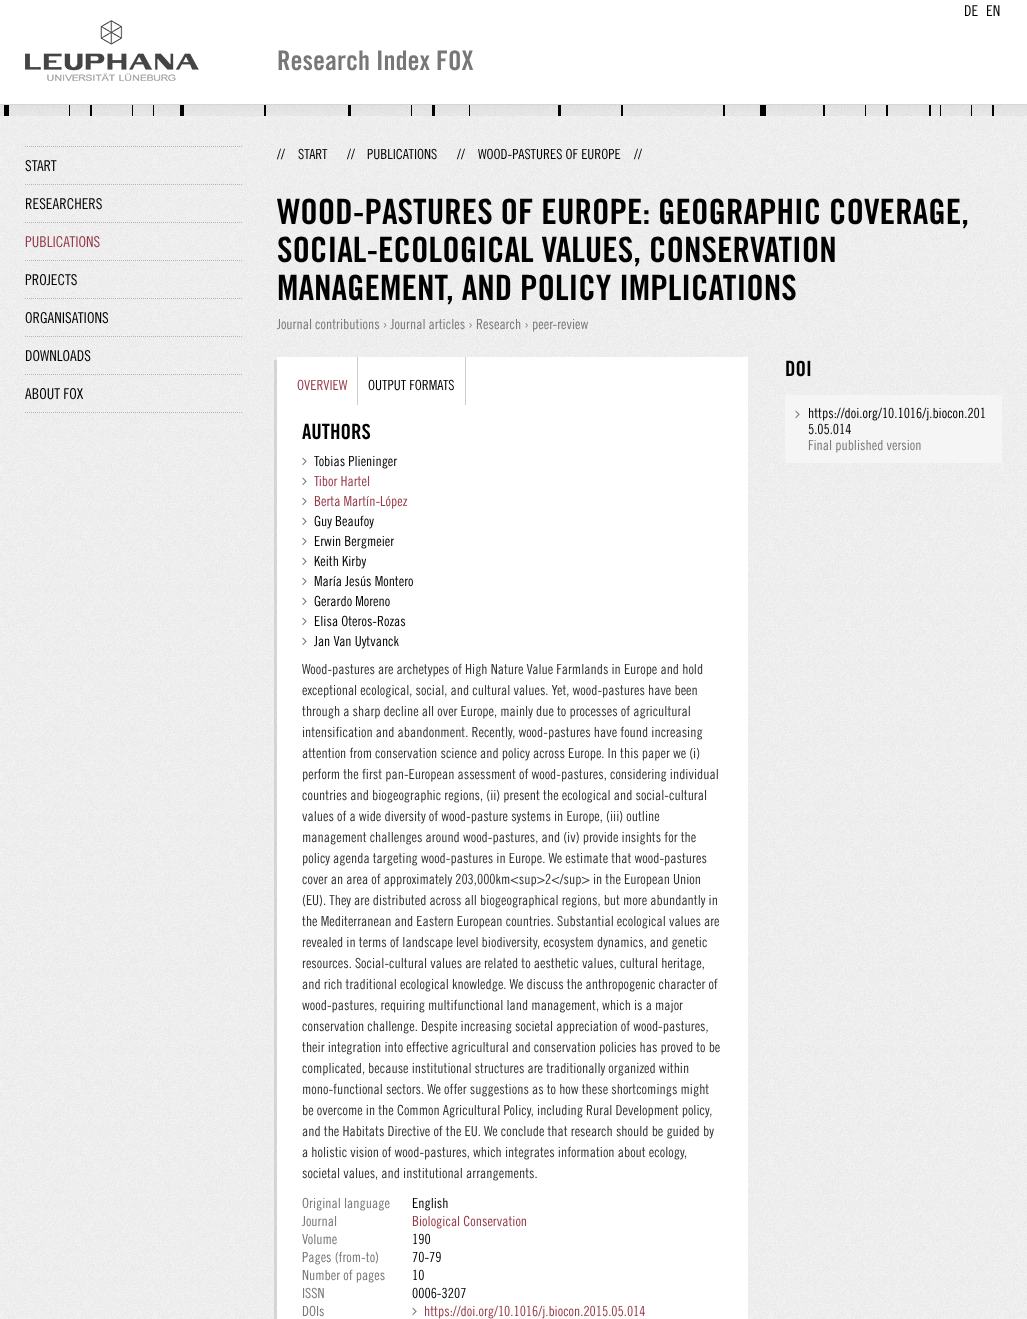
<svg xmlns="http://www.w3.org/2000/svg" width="1027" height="1319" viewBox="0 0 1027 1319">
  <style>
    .t1 { font: 15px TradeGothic; fill: #000; }
    .t2 { font: bold 27px 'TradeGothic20'; fill: #777; }
    .t3 { font: 15px TradeGothic; fill: #973948; }
    .t4 { font: 14px TradeGothic; fill: #000; }
    .t5 { font: bold 35px 'TradeGothic20'; fill: #000; }
    .t6 { font: 14px TradeGothic; fill: #777; }
    .t7 { font: 14px TradeGothic; fill: #973948; }
    .t8 { font: bold 21px 'TradeGothic20'; fill: #000; }
    .t9 { font: 14px TradeGothic; fill: #333; }
  </style>
  <rect width="100%" height="100%" fill="#fff"/>
  <image x="0" y="116" width="1027" height="1203" href="images/1.png"/>
  <rect x="0" y="104" width="1027" height="1" fill="#d6d6d6"/>
  <text x="964" y="16" class="t1">DE</text>
  <text x="986" y="16" class="t1">EN</text>
  <image x="25" y="20" width="174" height="61" href="images/2.png"/>
  <text x="277" y="70" class="t2">Research Index FOX</text>
  <image x="0" y="105" width="1027" height="11" href="images/3.png"/>
  <path d="M25 412.5H242" fill="none" stroke="#b5b5b5" stroke-dasharray="1 1"/>
  <path d="M25 146.5H242" fill="none" stroke="#b5b5b5" stroke-dasharray="1 1"/>
  <text x="25" y="171" class="t1">START</text>
  <path d="M25 184.5H242" fill="none" stroke="#b5b5b5" stroke-dasharray="1 1"/>
  <text x="25" y="209" class="t1">RESEARCHERS</text>
  <path d="M25 222.5H242" fill="none" stroke="#b5b5b5" stroke-dasharray="1 1"/>
  <text x="25" y="247" class="t3">PUBLICATIONS</text>
  <path d="M25 260.5H242" fill="none" stroke="#b5b5b5" stroke-dasharray="1 1"/>
  <text x="25" y="285" class="t1">PROJECTS</text>
  <path d="M25 298.5H242" fill="none" stroke="#b5b5b5" stroke-dasharray="1 1"/>
  <text x="25" y="323" class="t1">ORGANISATIONS</text>
  <path d="M25 336.5H242" fill="none" stroke="#b5b5b5" stroke-dasharray="1 1"/>
  <text x="25" y="361" class="t1">DOWNLOADS</text>
  <path d="M25 374.5H242" fill="none" stroke="#b5b5b5" stroke-dasharray="1 1"/>
  <text x="25" y="399" class="t1">ABOUT FOX</text>
  <text x="277" y="159" class="t4">//</text>
  <text x="298" y="159" class="t4">START</text>
  <text x="347" y="159" class="t4">//</text>
  <text x="367" y="159" class="t4">PUBLICATIONS</text>
  <text x="457" y="159" class="t4">//</text>
  <text x="478" y="159" class="t4">WOOD-PASTURES OF EUROPE</text>
  <text x="634" y="159" class="t4">//</text>
  <text x="277" y="224" class="t5">WOOD-PASTURES OF EUROPE: GEOGRAPHIC COVERAGE,</text>
  <text x="277" y="262" class="t5">SOCIAL-ECOLOGICAL VALUES, CONSERVATION</text>
  <text x="277" y="300" class="t5">MANAGEMENT, AND POLICY IMPLICATIONS</text>
  <text x="277" y="329" class="t6">Journal contributions › Journal articles › Research › peer-review</text>
  <path d="M274 360V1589H745V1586H277V360Z" fill="#0000001a"/>
  <rect x="277" y="357" width="471" height="962" fill="#fff"/>
  <rect x="357" y="357" width="1" height="48" fill="#cdcdcd"/>
  <text x="297" y="390" class="t7">OVERVIEW</text>
  <rect x="465" y="357" width="1" height="48" fill="#cdcdcd"/>
  <text x="368" y="390" class="t4">OUTPUT FORMATS</text>
  <text x="302" y="439" class="t8">AUTHORS</text>
  <image x="302" y="457" width="5" height="9" href="images/4.png"/>
  <text x="314" y="466" class="t4">Tobias Plieninger</text>
  <image x="302" y="477" width="5" height="9" href="images/4.png"/>
  <text x="314" y="486" class="t7">Tibor Hartel</text>
  <image x="302" y="497" width="5" height="9" href="images/4.png"/>
  <text x="314" y="506" class="t7">Berta Martín-López</text>
  <image x="302" y="517" width="5" height="9" href="images/4.png"/>
  <text x="314" y="526" class="t4">Guy Beaufoy</text>
  <image x="302" y="537" width="5" height="9" href="images/4.png"/>
  <text x="314" y="546" class="t4">Erwin Bergmeier</text>
  <image x="302" y="557" width="5" height="9" href="images/4.png"/>
  <text x="314" y="566" class="t4">Keith Kirby</text>
  <image x="302" y="577" width="5" height="9" href="images/4.png"/>
  <text x="314" y="586" class="t4">María Jesús Montero</text>
  <image x="302" y="597" width="5" height="9" href="images/4.png"/>
  <text x="314" y="606" class="t4">Gerardo Moreno</text>
  <image x="302" y="617" width="5" height="9" href="images/4.png"/>
  <text x="314" y="626" class="t4">Elisa Oteros-Rozas</text>
  <image x="302" y="637" width="5" height="9" href="images/4.png"/>
  <text x="314" y="646" class="t4">Jan Van Uytvanck</text>
  <text x="302" y="674" class="t9">Wood-pastures are archetypes of High Nature Value Farmlands in Europe and hold</text>
  <text x="302" y="695" class="t9">exceptional ecological, social, and cultural values. Yet, wood-pastures have been</text>
  <text x="302" y="716" class="t9">through a sharp decline all over Europe, mainly due to processes of agricultural</text>
  <text x="302" y="737" class="t9">intensification and abandonment. Recently, wood-pastures have found increasing</text>
  <text x="302" y="758" class="t9">attention from conservation science and policy across Europe. In this paper we (i)</text>
  <text x="302" y="779" class="t9">perform the first pan-European assessment of wood-pastures, considering individual</text>
  <text x="302" y="800" class="t9">countries and biogeographic regions, (ii) present the ecological and social-cultural</text>
  <text x="302" y="821" class="t9">values of a wide diversity of wood-pasture systems in Europe, (iii) outline</text>
  <text x="302" y="842" class="t9">management challenges around wood-pastures, and (iv) provide insights for the</text>
  <text x="302" y="863" class="t9">policy agenda targeting wood-pastures in Europe. We estimate that wood-pastures</text>
  <text x="302" y="884" class="t9">cover an area of approximately 203,000km&lt;sup&gt;2&lt;/sup&gt; in the European Union</text>
  <text x="302" y="905" class="t9">(EU). They are distributed across all biogeographical regions, but more abundantly in</text>
  <text x="302" y="926" class="t9">the Mediterranean and Eastern European countries. Substantial ecological values are</text>
  <text x="302" y="947" class="t9">revealed in terms of landscape level biodiversity, ecosystem dynamics, and genetic</text>
  <text x="302" y="968" class="t9">resources. Social-cultural values are related to aesthetic values, cultural heritage,</text>
  <text x="302" y="989" class="t9">and rich traditional ecological knowledge. We discuss the anthropogenic character of</text>
  <text x="302" y="1010" class="t9">wood-pastures, requiring multifunctional land management, which is a major</text>
  <text x="302" y="1031" class="t9">conservation challenge. Despite increasing societal appreciation of wood-pastures,</text>
  <text x="302" y="1052" class="t9">their integration into effective agricultural and conservation policies has proved to be</text>
  <text x="302" y="1073" class="t9">complicated, because institutional structures are traditionally organized within</text>
  <text x="302" y="1094" class="t9">mono-functional sectors. We offer suggestions as to how these shortcomings might</text>
  <text x="302" y="1115" class="t9">be overcome in the Common Agricultural Policy, including Rural Development policy,</text>
  <text x="302" y="1136" class="t9">and the Habitats Directive of the EU. We conclude that research should be guided by</text>
  <text x="302" y="1157" class="t9">a holistic vision of wood-pastures, which integrates information about ecology,</text>
  <text x="302" y="1178" class="t9">societal values, and institutional arrangements.</text>
  <text x="302" y="1208" class="t6">Original language</text>
  <text x="412" y="1208" class="t4">English</text>
  <text x="302" y="1226" class="t6">Journal</text>
  <text x="412" y="1226" class="t7">Biological Conservation</text>
  <text x="302" y="1244" class="t6">Volume</text>
  <text x="412" y="1244" class="t4">190</text>
  <text x="302" y="1262" class="t6">Pages (from-to)</text>
  <text x="412" y="1262" class="t4">70-79</text>
  <text x="302" y="1280" class="t6">Number of pages</text>
  <text x="412" y="1280" class="t4">10</text>
  <text x="302" y="1298" class="t6">ISSN</text>
  <text x="412" y="1298" class="t4">0006-3207</text>
  <text x="302" y="1316" class="t6">DOIs</text>
  <image x="412" y="1307" width="5" height="9" href="images/4.png"/>
  <text x="424" y="1316" class="t7">https://doi.org/10.1016/j.biocon.2015.05.014</text>
  <text x="785" y="376" class="t8">DOI</text>
  <rect x="785" y="395" width="217" height="68" fill="#f5f5f5"/>
  <image x="795" y="410" width="5" height="9" href="images/5.png"/>
  <text x="808" y="418" class="t4">https://doi.org/10.1016/j.biocon.201</text>
  <text x="808" y="434" class="t4">5.05.014</text>
  <text x="808" y="450" class="t6">Final published version</text>
</svg>
